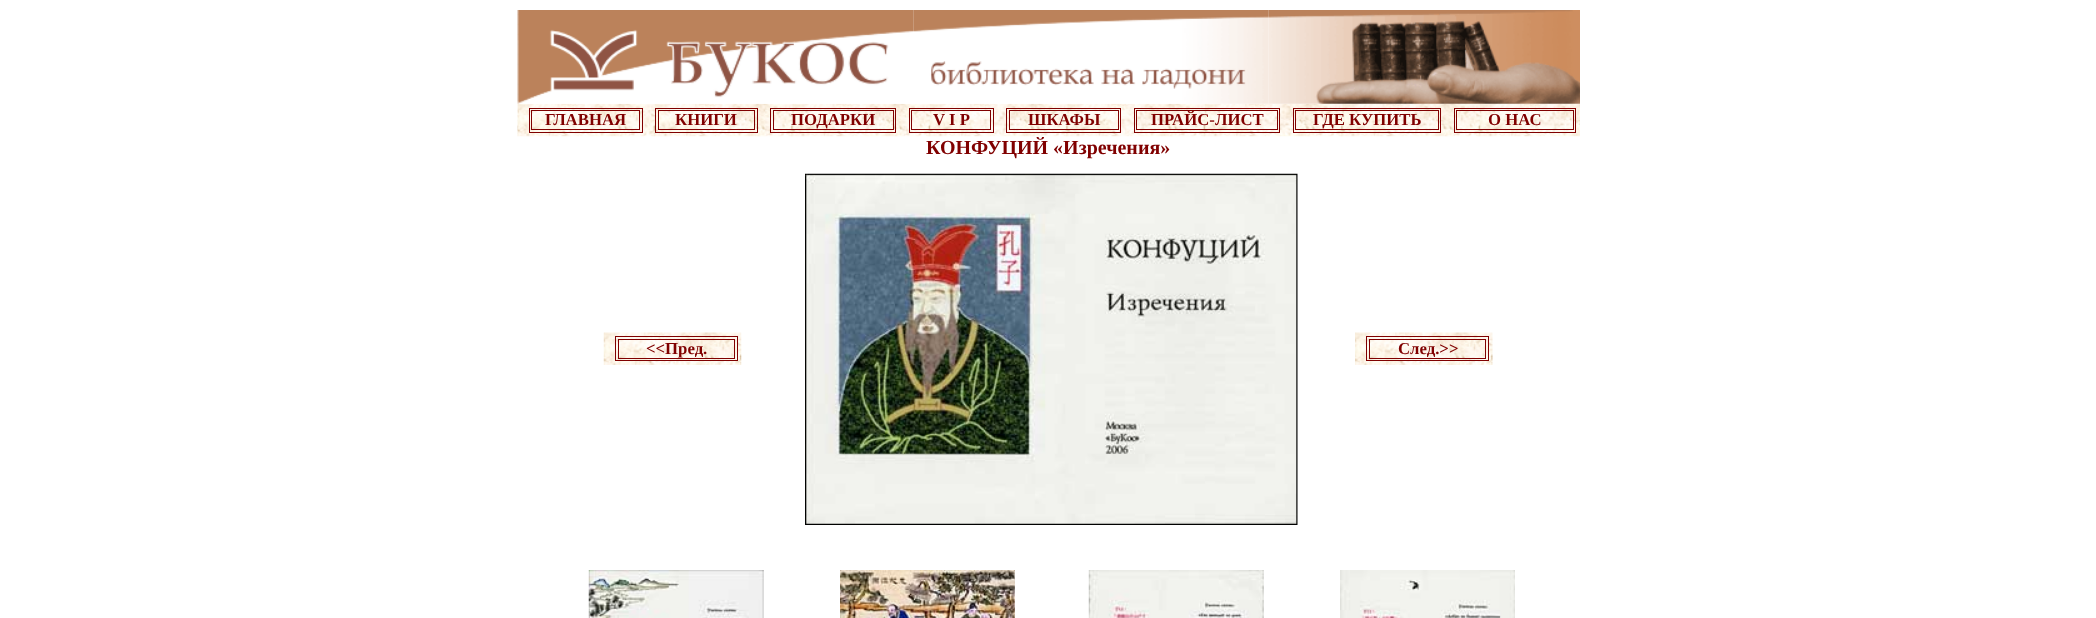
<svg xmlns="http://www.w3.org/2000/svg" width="2096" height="618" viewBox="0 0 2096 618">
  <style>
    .t1 { font: bold 16.75px Liberation Serif; fill: #800000; }
    .t2 { font: bold 20px Liberation Serif; fill: #800000; }
  </style>
  <rect width="100%" height="100%" fill="#fff"/>
  <image x="517" y="103" width="1063" height="34" href="images/4.png"/>
  <image x="517" y="10" width="397" height="94" href="images/1.png"/>
  <image x="913" y="10" width="356" height="94" href="images/2.png"/>
  <image x="1268" y="10" width="312" height="94" href="images/3.png"/>
  <rect x="529.5" y="108.5" width="113" height="24" fill="none" stroke="#800000"/>
  <rect x="531.5" y="110.5" width="108" height="19" fill="none" stroke="#800000"/>
  <text x="545" y="125" class="t1">ГЛАВНАЯ</text>
  <rect x="655.5" y="108.5" width="102" height="24" fill="none" stroke="#800000"/>
  <rect x="658.5" y="110.5" width="96" height="19" fill="none" stroke="#800000"/>
  <text x="675" y="125" class="t1">КНИГИ</text>
  <rect x="770.5" y="108.5" width="125" height="24" fill="none" stroke="#800000"/>
  <rect x="773.5" y="110.5" width="120" height="19" fill="none" stroke="#800000"/>
  <text x="791" y="125" class="t1">ПОДАРКИ</text>
  <rect x="909.5" y="108.5" width="84" height="24" fill="none" stroke="#800000"/>
  <rect x="911.5" y="110.5" width="79" height="19" fill="none" stroke="#800000"/>
  <text x="933" y="125" class="t1">V I P</text>
  <rect x="1006.5" y="108.5" width="114" height="24" fill="none" stroke="#800000"/>
  <rect x="1009.5" y="110.5" width="109" height="19" fill="none" stroke="#800000"/>
  <text x="1028" y="125" class="t1">ШКАФЫ</text>
  <rect x="1134.5" y="108.5" width="145" height="24" fill="none" stroke="#800000"/>
  <rect x="1136.5" y="110.5" width="141" height="19" fill="none" stroke="#800000"/>
  <text x="1151" y="125" class="t1">ПРАЙС-ЛИСТ</text>
  <rect x="1293.5" y="108.5" width="147" height="24" fill="none" stroke="#800000"/>
  <rect x="1295.5" y="110.5" width="143" height="19" fill="none" stroke="#800000"/>
  <text x="1313" y="125" class="t1">ГДЕ КУПИТЬ</text>
  <rect x="1454.5" y="108.5" width="121" height="24" fill="none" stroke="#800000"/>
  <rect x="1456.5" y="110.5" width="117" height="19" fill="none" stroke="#800000"/>
  <text x="1488" y="125" class="t1">О НАС</text>
  <text x="926" y="154" class="t2">КОНФУЦИЙ «Изречения»</text>
  <image x="603" y="332" width="139" height="33" href="images/5.png"/>
  <rect x="615.5" y="336.5" width="122" height="24" fill="none" stroke="#800000"/>
  <rect x="618.5" y="339.5" width="116" height="19" fill="none" stroke="#800000"/>
  <text x="646" y="354" class="t1">&lt;&lt;Пред.</text>
  <image x="805" y="173" width="493" height="352" href="images/6.png"/>
  <image x="1355" y="332" width="138" height="33" href="images/7.png"/>
  <rect x="1366.5" y="336.5" width="122" height="24" fill="none" stroke="#800000"/>
  <rect x="1369.5" y="339.5" width="116" height="19" fill="none" stroke="#800000"/>
  <text x="1398" y="354" class="t1">След.&gt;&gt;</text>
  <image x="588" y="570" width="176" height="48" href="images/8.png"/>
  <image x="840" y="570" width="175" height="48" href="images/9.png"/>
  <image x="1088" y="570" width="176" height="48" href="images/10.png"/>
  <image x="1340" y="570" width="175" height="48" href="images/11.png"/>
</svg>
